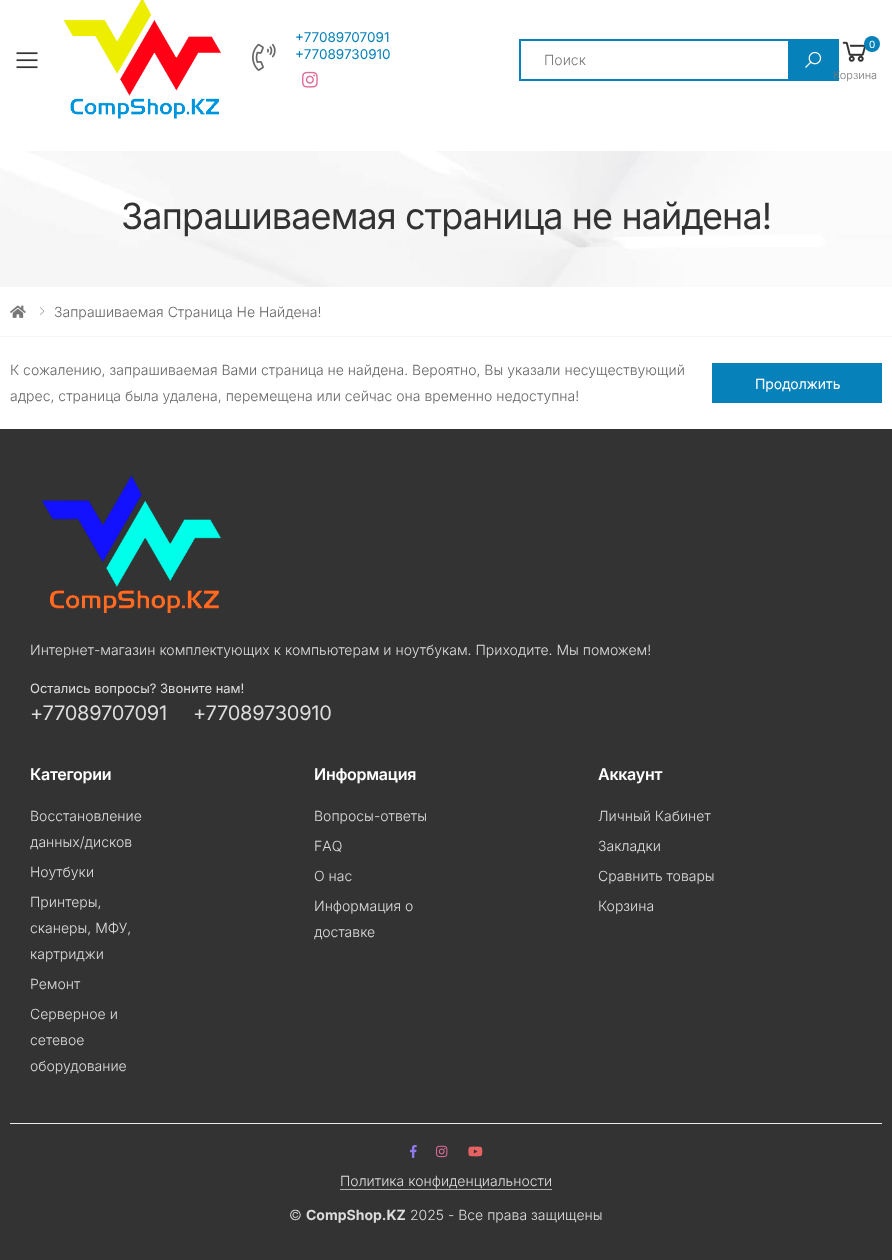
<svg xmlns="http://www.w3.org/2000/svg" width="892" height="1260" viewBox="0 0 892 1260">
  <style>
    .t1 { font: 13.5px Inter; fill: #0681b9; }
    .t2 { font: 300 14px Inter; fill: #777; }
    .t3 { font: 10px Inter; fill: #fff; }
    .t4 { font: 300 11px Inter; fill: #777; }
    .t5 { font: 36px Inter; letter-spacing: -0.9px; fill: #333; }
    .t6 { font: 300 14px Inter; fill: #666; }
    .t7 { font: 14px Inter; letter-spacing: -0.1px; fill: #fff; }
    .t8 { font: 300 14px Inter; fill: #ddd; }
    .t9 { font: 13px Inter; fill: #ddd; }
    .t10 { font: 20px Inter; letter-spacing: -0.25px; fill: #ddd; }
    .t11 { font: 600 16px Inter; letter-spacing: -0.25px; fill: #fff; }
    .t12 { font: bold 14px Inter; fill: #ddd; }
  </style>
  <rect width="100%" height="100%" fill="#fff"/>
  <image x="16" y="52" width="22" height="17" href="images/1.png"/>
  <image x="63" y="0" width="159" height="119" href="images/2.png"/>
  <image x="252" y="43" width="24" height="28" href="images/3.png"/>
  <text x="295" y="42" class="t1">+77089707091</text>
  <text x="295" y="59" class="t1">+77089730910</text>
  <image x="302" y="71" width="16" height="17" href="images/4.png"/>
  <rect x="520" y="40" width="318" height="40" fill="none" stroke="#0681b9" stroke-width="2"/>
  <text x="544" y="65" class="t2">Поиск</text>
  <path d="M788 40H836C837 40 838 41 838 42V78C838 79 837 80 836 80H788Z" fill="#0681b9"/>
  <image x="805" y="51" width="17" height="17" href="images/5.png"/>
  <image x="842" y="41" width="24" height="21" href="images/6.png"/>
  <circle cx="872" cy="44" r="8" fill="#0681b9"/>
  <text x="869" y="48" class="t3">0</text>
  <text x="833" y="79" class="t4">Корзина</text>
  <image x="0" y="151" width="892" height="136" href="images/7.png"/>
  <text x="121" y="229" class="t5">Запрашиваемая страница не найдена!</text>
  <rect x="0" y="336" width="892" height="1" fill="#f4f4f4"/>
  <image x="10" y="305" width="16" height="13" href="images/8.png"/>
  <image x="40" y="307" width="5" height="8" href="images/9.png"/>
  <text x="54" y="317" class="t6">Запрашиваемая Страница Не Найдена!</text>
  <text x="10" y="375" class="t6">К сожалению, запрашиваемая Вами страница не найдена. Вероятно, Вы указали несуществующий</text>
  <text x="10" y="401" class="t6">адрес, страница была удалена, перемещена или сейчас она временно недоступна!</text>
  <rect x="712" y="363" width="170" height="40" fill="#0681b9"/>
  <text x="755" y="389" class="t7">Продолжить</text>
  <rect x="0" y="429" width="892" height="831" fill="#333"/>
  <image x="42" y="475" width="179" height="138" href="images/10.png"/>
  <text x="30" y="655" class="t8">Интернет-магазин комплектующих к компьютерам и ноутбукам. Приходите. Мы поможем!</text>
  <text x="30" y="693" class="t9">Остались вопросы? Звоните нам!</text>
  <text x="30" y="720" class="t10">+77089707091</text>
  <text x="193" y="720" class="t10">+77089730910</text>
  <text x="30" y="780" class="t11">Категории</text>
  <text x="30" y="821" class="t8">Восстановление</text>
  <text x="30" y="847" class="t8">данных/дисков</text>
  <text x="30" y="877" class="t8">Ноутбуки</text>
  <text x="30" y="907" class="t8">Принтеры,</text>
  <text x="30" y="933" class="t8">сканеры, МФУ,</text>
  <text x="30" y="959" class="t8">картриджи</text>
  <text x="30" y="989" class="t8">Ремонт</text>
  <text x="30" y="1019" class="t8">Серверное и</text>
  <text x="30" y="1045" class="t8">сетевое</text>
  <text x="30" y="1071" class="t8">оборудование</text>
  <text x="314" y="780" class="t11">Информация</text>
  <text x="314" y="821" class="t8">Вопросы-ответы</text>
  <text x="314" y="851" class="t8">FAQ</text>
  <text x="314" y="881" class="t8">О нас</text>
  <text x="314" y="911" class="t8">Информация о</text>
  <text x="314" y="937" class="t8">доставке</text>
  <text x="598" y="780" class="t11">Аккаунт</text>
  <text x="598" y="821" class="t8">Личный Кабинет</text>
  <text x="598" y="851" class="t8">Закладки</text>
  <text x="598" y="881" class="t8">Сравнить товары</text>
  <text x="598" y="911" class="t8">Корзина</text>
  <rect x="10" y="1123" width="872" height="1" fill="#ebebeb"/>
  <image x="410" y="1145" width="7" height="13" href="images/11.png"/>
  <image x="436" y="1145" width="12" height="13" href="images/12.png"/>
  <image x="468" y="1146" width="15" height="11" href="images/13.png"/>
  <text x="340" y="1186" class="t8">Политика конфиденциальности</text>
  <rect x="340" y="1189" width="212" height="1" fill="#b5b5b5"/>
  <text x="289" y="1220" class="t8">©</text>
  <text x="306" y="1220" class="t12">CompShop.KZ</text>
  <text x="410" y="1220" class="t8">2025 - Все права защищены</text>
</svg>
